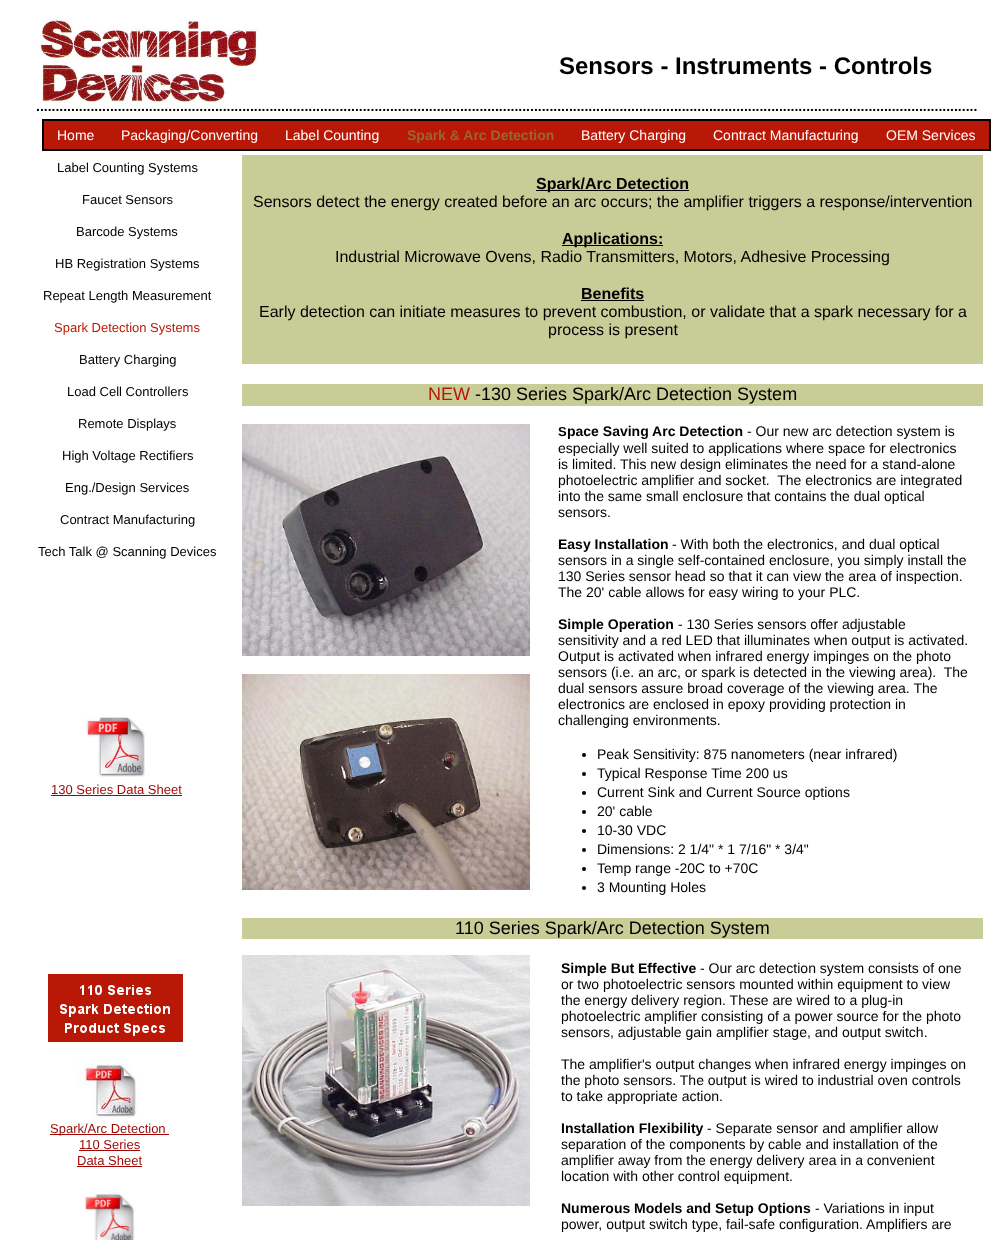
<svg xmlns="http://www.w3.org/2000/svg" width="998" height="1240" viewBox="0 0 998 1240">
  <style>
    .t1 { font: bold 24px Liberation Sans; fill: #000; }
    .t2 { font: bold 14px Liberation Sans; fill: #000; }
    .t3 { font: 14px Liberation Sans; fill: #fff; }
    .t4 { font: bold 14px Liberation Sans; fill: #963; }
    .t5 { font: 13px Liberation Sans; fill: #000; }
    .t6 { font: 13px Liberation Sans; fill: #b91806; }
    .t7 { font: bold 16px Liberation Sans; fill: #000; }
    .t8 { font: 16px Liberation Sans; fill: #000; }
    .t9 { font: 18px Liberation Sans; fill: #b91806; }
    .t10 { font: 18px Liberation Sans; fill: #000; }
    .t11 { font: bold 13px Liberation Sans; fill: #000; }
    .t12 { font: 14px Liberation Sans; fill: #000; }
    .t13 { font: 13px Liberation Sans; fill: #9e0704; }
  </style>
  <rect width="100%" height="100%" fill="#fff"/>
  <image x="38" y="19" width="220" height="83" href="images/1.png"/>
  <text x="559" y="74" class="t1">Sensors - Instruments - Controls</text>
  <text x="36" y="111" class="t2">..................................................................................................................................................................................................................................................</text>
  <rect x="42" y="119" width="949" height="2" fill="#000"/>
  <rect x="42" y="121" width="2" height="28" fill="#000"/>
  <rect x="44" y="121" width="945" height="28" fill="#b91806"/>
  <text x="57" y="140" class="t3">Home</text>
  <text x="121" y="140" class="t3">Packaging/Converting</text>
  <text x="285" y="140" class="t3">Label Counting</text>
  <text x="407" y="140" class="t4">Spark &amp; Arc Detection</text>
  <text x="581" y="140" class="t3">Battery Charging</text>
  <text x="713" y="140" class="t3">Contract Manufacturing</text>
  <text x="886" y="140" class="t3">OEM Services</text>
  <rect x="989" y="121" width="2" height="28" fill="#000"/>
  <rect x="42" y="149" width="949" height="2" fill="#000"/>
  <text x="57" y="172" class="t5">Label Counting Systems</text>
  <text x="82" y="204" class="t5">Faucet Sensors</text>
  <text x="76" y="236" class="t5">Barcode Systems</text>
  <text x="55" y="268" class="t5">HB Registration Systems</text>
  <text x="43" y="300" class="t5">Repeat Length Measurement</text>
  <text x="54" y="332" class="t6">Spark Detection Systems</text>
  <text x="79" y="364" class="t5">Battery Charging</text>
  <text x="67" y="396" class="t5">Load Cell Controllers</text>
  <text x="78" y="428" class="t5">Remote Displays</text>
  <text x="62" y="460" class="t5">High Voltage Rectifiers</text>
  <text x="65" y="492" class="t5">Eng./Design Services</text>
  <text x="60" y="524" class="t5">Contract Manufacturing</text>
  <text x="38" y="556" class="t5">Tech Talk @ Scanning Devices</text>
  <rect x="242" y="155" width="741" height="209" fill="#c8cc97"/>
  <rect x="536" y="190" width="153" height="1" fill="#000"/>
  <text x="536" y="189" class="t7">Spark/Arc Detection</text>
  <text x="253" y="207" class="t8">Sensors detect the energy created before an arc occurs; the amplifier triggers a response/intervention</text>
  <rect x="562" y="245" width="101" height="1" fill="#000"/>
  <text x="562" y="244" class="t7">Applications:</text>
  <text x="335" y="262" class="t8">Industrial Microwave Ovens, Radio Transmitters, Motors, Adhesive Processing</text>
  <text x="581" y="299" class="t7">Benefits</text>
  <rect x="581" y="300" width="63" height="1" fill="#000"/>
  <text x="259" y="317" class="t8">Early detection can initiate measures to prevent combustion, or validate that a spark necessary for a</text>
  <text x="548" y="335" class="t8">process is present</text>
  <rect x="242" y="384" width="741" height="22" fill="#c8cc97"/>
  <text x="428" y="400" class="t9">NEW</text>
  <text x="475" y="400" class="t10">-130 Series Spark/Arc Detection System</text>
  <image x="242" y="424" width="288" height="232" href="images/2.png"/>
  <text x="558" y="436" class="t11">S</text>
  <text x="567" y="436" class="t2">pace Saving Arc Detection</text>
  <text x="747" y="436" class="t12">- Our new arc detection system is</text>
  <text x="558" y="453" class="t12">especially well suited to applications where space for electronics</text>
  <text x="558" y="469" class="t12">is limited. This new design eliminates the need for a stand-alone</text>
  <text x="558" y="485" class="t12" xml:space="preserve">photoelectric amplifier and socket.  The electronics are integrated</text>
  <text x="558" y="501" class="t12">into the same small enclosure that contains the dual optical</text>
  <text x="558" y="517" class="t12">sensors.</text>
  <text x="558" y="549" class="t2">Easy Installation</text>
  <text x="672" y="549" class="t12">- With both the electronics, and dual optical</text>
  <text x="558" y="565" class="t12">sensors in a single self-contained enclosure, you simply install the</text>
  <text x="558" y="581" class="t12">130 Series sensor head so that it can view the area of inspection.</text>
  <text x="558" y="597" class="t12">The 20' cable allows for easy wiring to your PLC.</text>
  <text x="558" y="629" class="t2">Simple Operation</text>
  <text x="678" y="629" class="t12">- 130 Series sensors offer adjustable</text>
  <text x="558" y="645" class="t12">sensitivity and a red LED that illuminates when output is activated.</text>
  <text x="558" y="661" class="t12">Output is activated when infrared energy impinges on the photo</text>
  <text x="558" y="677" class="t12" xml:space="preserve">sensors (i.e. an arc, or spark is detected in the viewing area).  The</text>
  <text x="558" y="693" class="t12">dual sensors assure broad coverage of the viewing area. The</text>
  <text x="558" y="709" class="t12">electronics are enclosed in epoxy providing protection in</text>
  <text x="558" y="725" class="t12">challenging environments.</text>
  <circle cx="584" cy="755" r="2" fill="#000"/>
  <text x="597" y="759" class="t12">Peak Sensitivity: 875 nanometers (near infrared)</text>
  <circle cx="584" cy="774" r="2" fill="#000"/>
  <text x="597" y="778" class="t12">Typical Response Time 200 us</text>
  <circle cx="584" cy="793" r="2" fill="#000"/>
  <text x="597" y="797" class="t12">Current Sink and Current Source options</text>
  <circle cx="584" cy="812" r="2" fill="#000"/>
  <text x="597" y="816" class="t12">20' cable</text>
  <circle cx="584" cy="831" r="2" fill="#000"/>
  <text x="597" y="835" class="t12">10-30 VDC</text>
  <circle cx="584" cy="850" r="2" fill="#000"/>
  <text x="597" y="854" class="t12">Dimensions: 2 1/4" * 1 7/16" * 3/4"</text>
  <circle cx="584" cy="869" r="2" fill="#000"/>
  <text x="597" y="873" class="t12">Temp range -20C to +70C</text>
  <circle cx="584" cy="888" r="2" fill="#000"/>
  <text x="597" y="892" class="t12">3 Mounting Holes</text>
  <image x="85" y="717" width="60" height="60" href="images/3.png"/>
  <image x="242" y="674" width="288" height="216" href="images/4.png"/>
  <text x="51" y="794" class="t13">130 Series Data Sheet</text>
  <rect x="51" y="795" width="131" height="1" fill="#9e0704"/>
  <rect x="242" y="918" width="741" height="21" fill="#c8cc97"/>
  <text x="455" y="934" class="t10">110 Series Spark/Arc Detection System</text>
  <image x="48" y="974" width="135" height="68" href="images/5.png"/>
  <image x="242" y="955" width="288" height="251" href="images/6.png"/>
  <text x="561" y="973" class="t2">Simple But Effective</text>
  <text x="700" y="973" class="t12">- Our arc detection system consists of one</text>
  <text x="561" y="989" class="t12">or two photoelectric sensors mounted within equipment to view</text>
  <text x="561" y="1005" class="t12">the energy delivery region. These are wired to a plug-in</text>
  <text x="561" y="1021" class="t12">photoelectric amplifier consisting of a power source for the photo</text>
  <text x="561" y="1037" class="t12">sensors, adjustable gain amplifier stage, and output switch.</text>
  <text x="561" y="1069" class="t12">The amplifier's output changes when infrared energy impinges on</text>
  <text x="561" y="1085" class="t12">the photo sensors. The output is wired to industrial oven controls</text>
  <text x="561" y="1101" class="t12">to take appropriate action.</text>
  <text x="561" y="1133" class="t2">Installation Flexibility</text>
  <text x="707" y="1133" class="t12">- Separate sensor and amplifier allow</text>
  <text x="561" y="1149" class="t12">separation of the components by cable and installation of the</text>
  <text x="561" y="1165" class="t12">amplifier away from the energy delivery area in a convenient</text>
  <text x="561" y="1181" class="t12">location with other control equipment.</text>
  <text x="561" y="1213" class="t2">Numerous Models and Setup Options</text>
  <text x="815" y="1213" class="t12">- Variations in input</text>
  <text x="561" y="1229" class="t12">power, output switch type, fail-safe configuration. Amplifiers are</text>
  <image x="76" y="1056" width="64" height="64" href="images/7.png"/>
  <rect x="50" y="1134" width="119" height="1" fill="#9e0704"/>
  <text x="50" y="1133" class="t13">Spark/Arc Detection</text>
  <text x="79" y="1149" class="t13">110 Series</text>
  <rect x="79" y="1150" width="61" height="1" fill="#9e0704"/>
  <text x="77" y="1165" class="t13">Data Sheet</text>
  <rect x="77" y="1166" width="65" height="1" fill="#9e0704"/>
  <image x="84" y="1194" width="51" height="46" href="images/8.png"/>
</svg>
